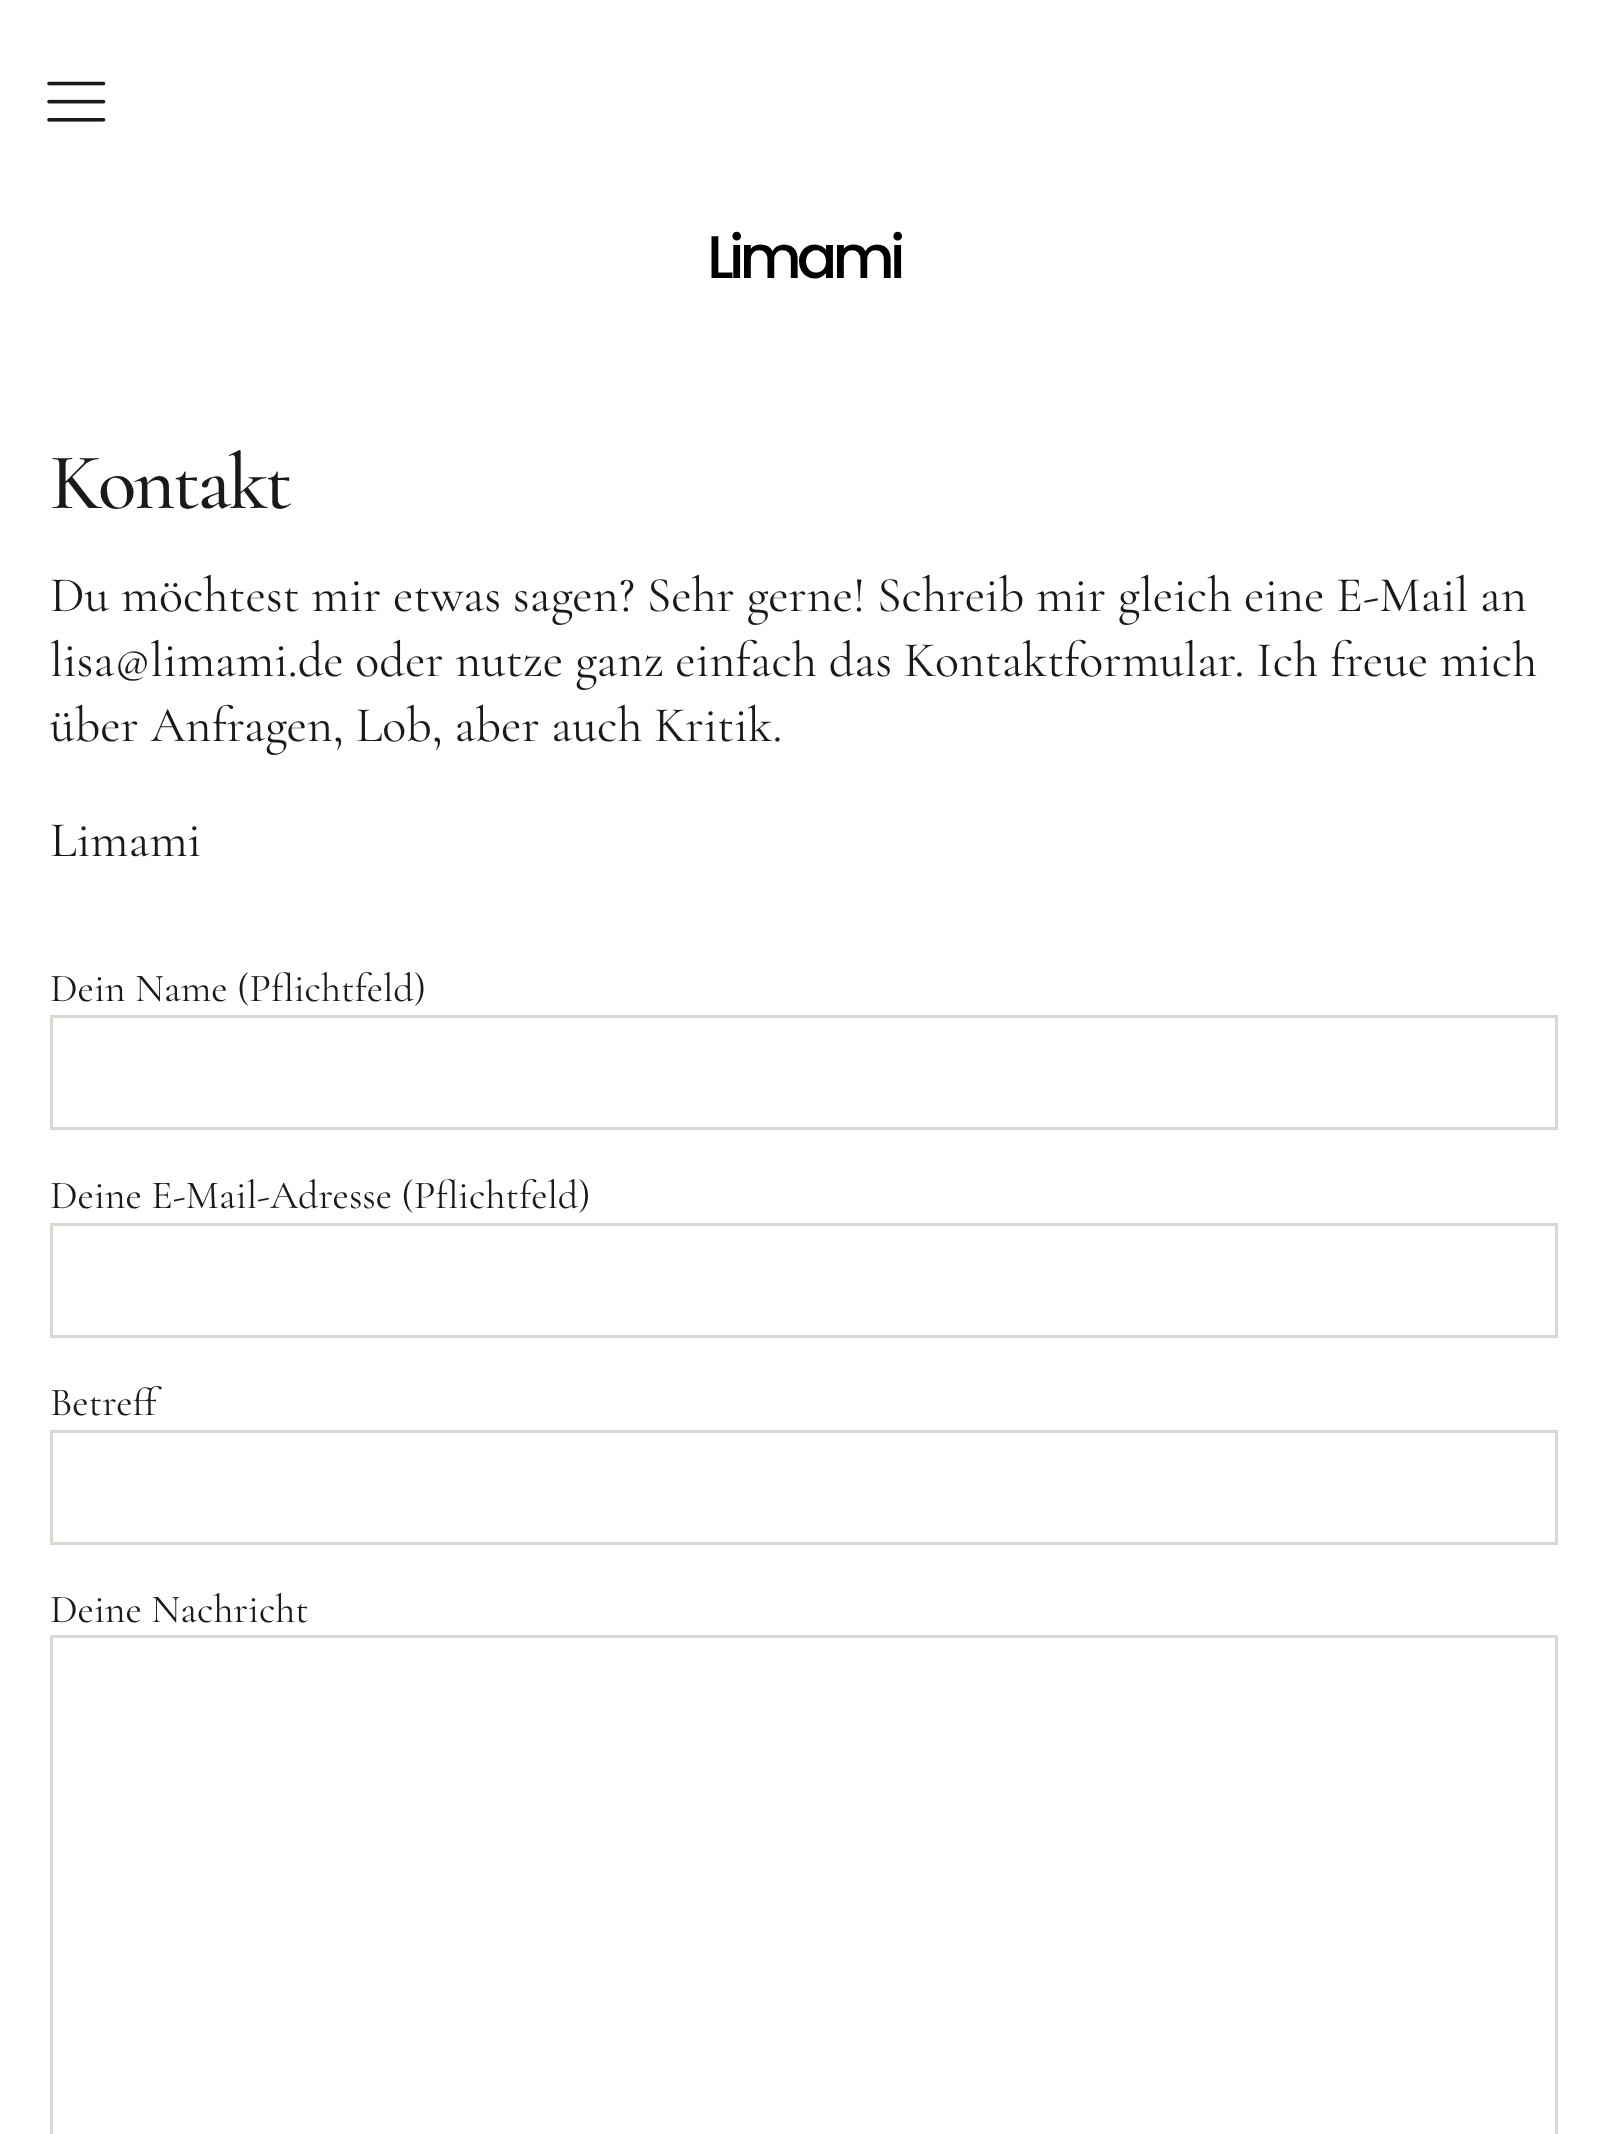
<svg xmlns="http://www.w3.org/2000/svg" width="1606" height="2134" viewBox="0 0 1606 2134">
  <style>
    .t1 { font: 500 60px Poppins; letter-spacing: -5px; fill: #000; }
    .t2 { font: 500 80px Cormorant Garamond; letter-spacing: -2.5px; fill: #1a1a1a; }
    .t3 { font: 50px Cormorant Garamond; fill: #1a1a1a; }
    .t4 { font: 40px Cormorant Garamond; fill: #1a1a1a; }
  </style>
  <rect width="100%" height="100%" fill="#fff"/>
  <image x="47" y="81" width="59" height="41" href="images/1.png"/>
  <text x="707" y="278" class="t1">Limami</text>
  <text x="50" y="508" class="t2">Kontakt</text>
  <text x="50" y="611" class="t3">Du möchtest mir etwas sagen? Sehr gerne! Schreib mir gleich eine E-Mail an</text>
  <text x="50" y="676" class="t3">lisa@limami.de oder nutze ganz einfach das Kontaktformular. Ich freue mich</text>
  <text x="50" y="741" class="t3">über Anfragen, Lob, aber auch Kritik.</text>
  <text x="50" y="856" class="t3">Limami</text>
  <text x="50" y="1001" class="t4">Dein Name (Pflichtfeld)</text>
  <rect x="51.5" y="1016.5" width="1505" height="112" fill="none" stroke="#d9d9d4" stroke-width="3"/>
  <text x="50" y="1208" class="t4">Deine E-Mail-Adresse (Pflichtfeld)</text>
  <rect x="51.5" y="1224.5" width="1505" height="112" fill="none" stroke="#d9d9d4" stroke-width="3"/>
  <text x="50" y="1415" class="t4">Betreff</text>
  <rect x="51.5" y="1431.5" width="1505" height="112" fill="none" stroke="#d9d9d4" stroke-width="3"/>
  <text x="50" y="1622" class="t4">Deine Nachricht</text>
  <rect x="51.5" y="1636.5" width="1505" height="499" fill="none" stroke="#d9d9d4" stroke-width="3"/>
</svg>
